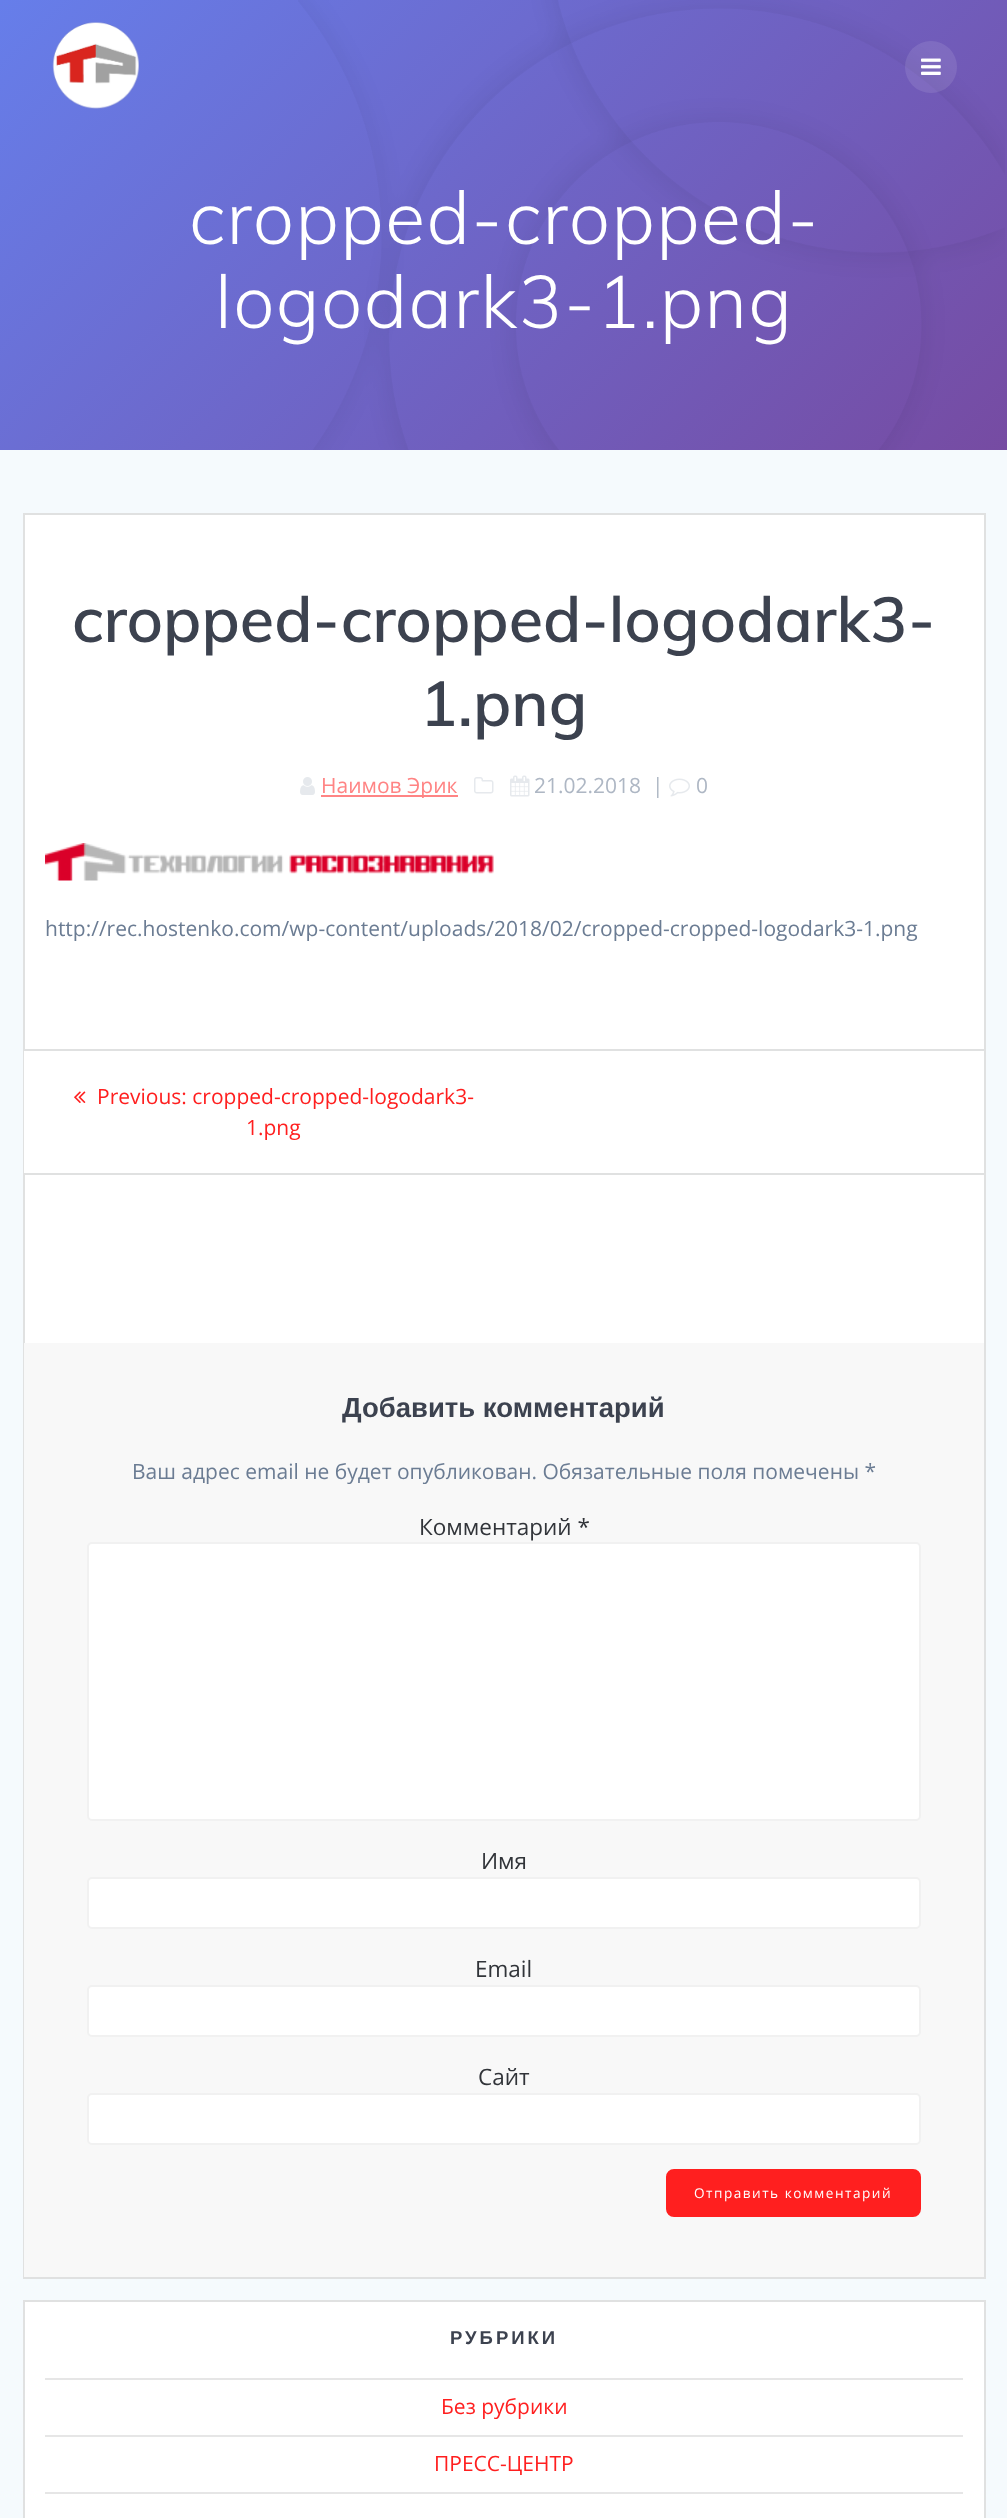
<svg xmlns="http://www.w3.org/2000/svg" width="1007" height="2518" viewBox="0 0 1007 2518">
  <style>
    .t1 { font: 300 73.5px Muli; letter-spacing: 1.4px; fill: #fff; }
    .t2 { font: 600 63px Muli; fill: #3c424f; }
    .t3 { font: 21px Open Sans; fill: #ff8484; }
    .t4 { font: 21px Open Sans; fill: #aeb7c4; }
    .t5 { font: 21px Open Sans; fill: #6b7c93; }
    .t6 { font: 21px Open Sans; fill: #ff1f1f; }
    .t7 { font: bold 27.5px Liberation Sans; fill: #3c424f; }
    .t8 { font: 22.5px Open Sans; fill: #313439; }
    .t9 { font: 13.6px Open Sans; letter-spacing: 1.5px; fill: #fff; }
    .t10 { font: bold 18.5px Liberation Sans; letter-spacing: 3px; fill: #3c424f; }
  </style>
  <defs>
    <linearGradient id="g1" gradientUnits="userSpaceOnUse" x1="140" y1="-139" x2="869" y2="590"><stop offset="0" stop-color="#667eea"/><stop offset="1" stop-color="#764ba2"/></linearGradient>
  </defs>
  <rect width="100%" height="100%" fill="#fff"/>
  <rect x="0" y="0" width="1007" height="450" fill="url(#g1)"/>
  <image x="52" y="22" width="88" height="87" href="images/1.png"/>
  <image x="298" y="0" width="707" height="450" href="images/3.png"/>
  <circle cx="931" cy="67" r="26" fill="#ffffff1a"/>
  <image x="921" y="58" width="20" height="17" href="images/2.png"/>
  <text x="189" y="244" class="t1">cropped-cropped-</text>
  <text x="215" y="328" class="t1">logodark3-1.png</text>
  <rect x="0" y="450" width="1007" height="2068" fill="#f5fafd"/>
  <rect x="25" y="515" width="959" height="828" fill="#fff"/>
  <rect x="24" y="514" width="961" height="1764" fill="none" stroke="#e0e1e1" stroke-width="2"/>
  <text x="72" y="642" class="t2">cropped-cropped-logodark3-</text>
  <text x="420" y="726" class="t2">1.png</text>
  <image x="300" y="777" width="15" height="18" href="images/4.png"/>
  <rect x="321" y="795" width="137" height="2" fill="#ff8484"/>
  <text x="321" y="793" class="t3">Наимов Эрик</text>
  <image x="474" y="777" width="20" height="17" href="images/5.png"/>
  <image x="510" y="775" width="20" height="22" href="images/6.png"/>
  <text x="534" y="793" class="t4">21.02.2018</text>
  <text x="652" y="793" class="t4">|</text>
  <image x="669" y="778" width="21" height="19" href="images/7.png"/>
  <text x="696" y="793" class="t4">0</text>
  <image x="45" y="843" width="449" height="38" href="images/8.png"/>
  <text x="45" y="936" class="t5">http://rec.hostenko.com/wp-content/uploads/2018/02/cropped-cropped-logodark3-1.png</text>
  <rect x="24" y="1051" width="1" height="122" fill="#fff"/>
  <rect x="24" y="1049" width="960" height="2" fill="#e0e1e1"/>
  <rect x="24" y="1173" width="960" height="2" fill="#e0e1e1"/>
  <image x="74" y="1091" width="12" height="12" href="images/9.png"/>
  <text x="97" y="1104" class="t6">Previous: cropped-cropped-logodark3-</text>
  <text x="246" y="1135" class="t6">1.png</text>
  <rect x="24" y="1343" width="960" height="934" fill="#f8f8f8"/>
  <text x="342" y="1417" class="t7">Добавить комментарий</text>
  <text x="132" y="1479" class="t5">Ваш адрес email не будет опубликован. Обязательные поля помечены *</text>
  <text x="419" y="1535" class="t8">Комментарий *</text>
  <rect x="88" y="1543" width="832" height="277" rx="4" fill="#fff" stroke="#f1f1f1" stroke-width="2"/>
  <text x="481" y="1869" class="t8">Имя</text>
  <rect x="88" y="1878" width="832" height="50" rx="4" fill="#fff" stroke="#f1f1f1" stroke-width="2"/>
  <text x="475" y="1977" class="t8">Email</text>
  <rect x="88" y="1986" width="832" height="50" rx="4" fill="#fff" stroke="#f1f1f1" stroke-width="2"/>
  <text x="478" y="2085" class="t8">Сайт</text>
  <rect x="88" y="2094" width="832" height="50" rx="4" fill="#fff" stroke="#f1f1f1" stroke-width="2"/>
  <rect x="667.5" y="2170.5" width="252" height="45" rx="6.5" fill="#ff1f1f" stroke="#ff1f1f" stroke-width="3"/>
  <text x="694" y="2198" class="t9">Отправить комментарий</text>
  <rect x="24" y="2301" width="961" height="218" fill="#fff" stroke="#e0e1e1" stroke-width="2"/>
  <text x="450" y="2344" class="t10">РУБРИКИ</text>
  <rect x="45" y="2378" width="918" height="2" fill="#e6e6e6"/>
  <text x="441" y="2414" class="t6">Без рубрики</text>
  <rect x="45" y="2435" width="918" height="2" fill="#e6e6e6"/>
  <text x="434" y="2471" class="t6">ПРЕСС-ЦЕНТР</text>
  <rect x="45" y="2492" width="918" height="2" fill="#e6e6e6"/>
</svg>
